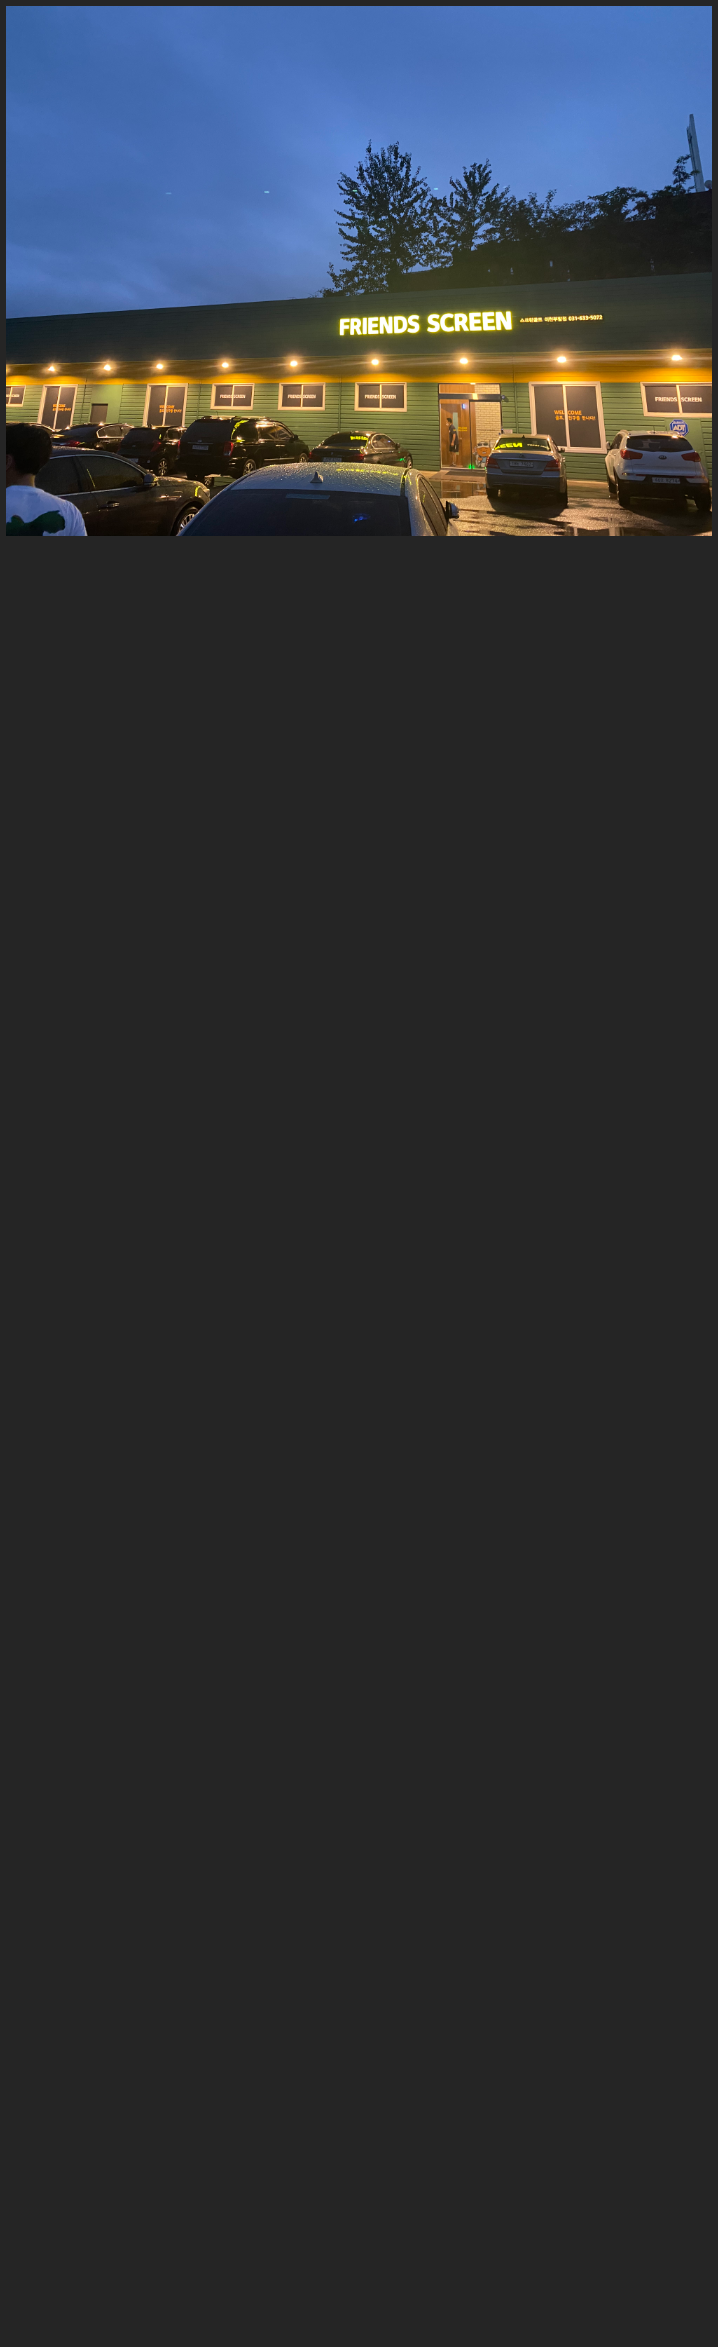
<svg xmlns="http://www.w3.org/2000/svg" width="718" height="2347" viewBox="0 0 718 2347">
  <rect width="100%" height="100%" fill="#252525"/>
  <image x="6" y="6" width="706" height="530" href="images/1.png"/>
</svg>
